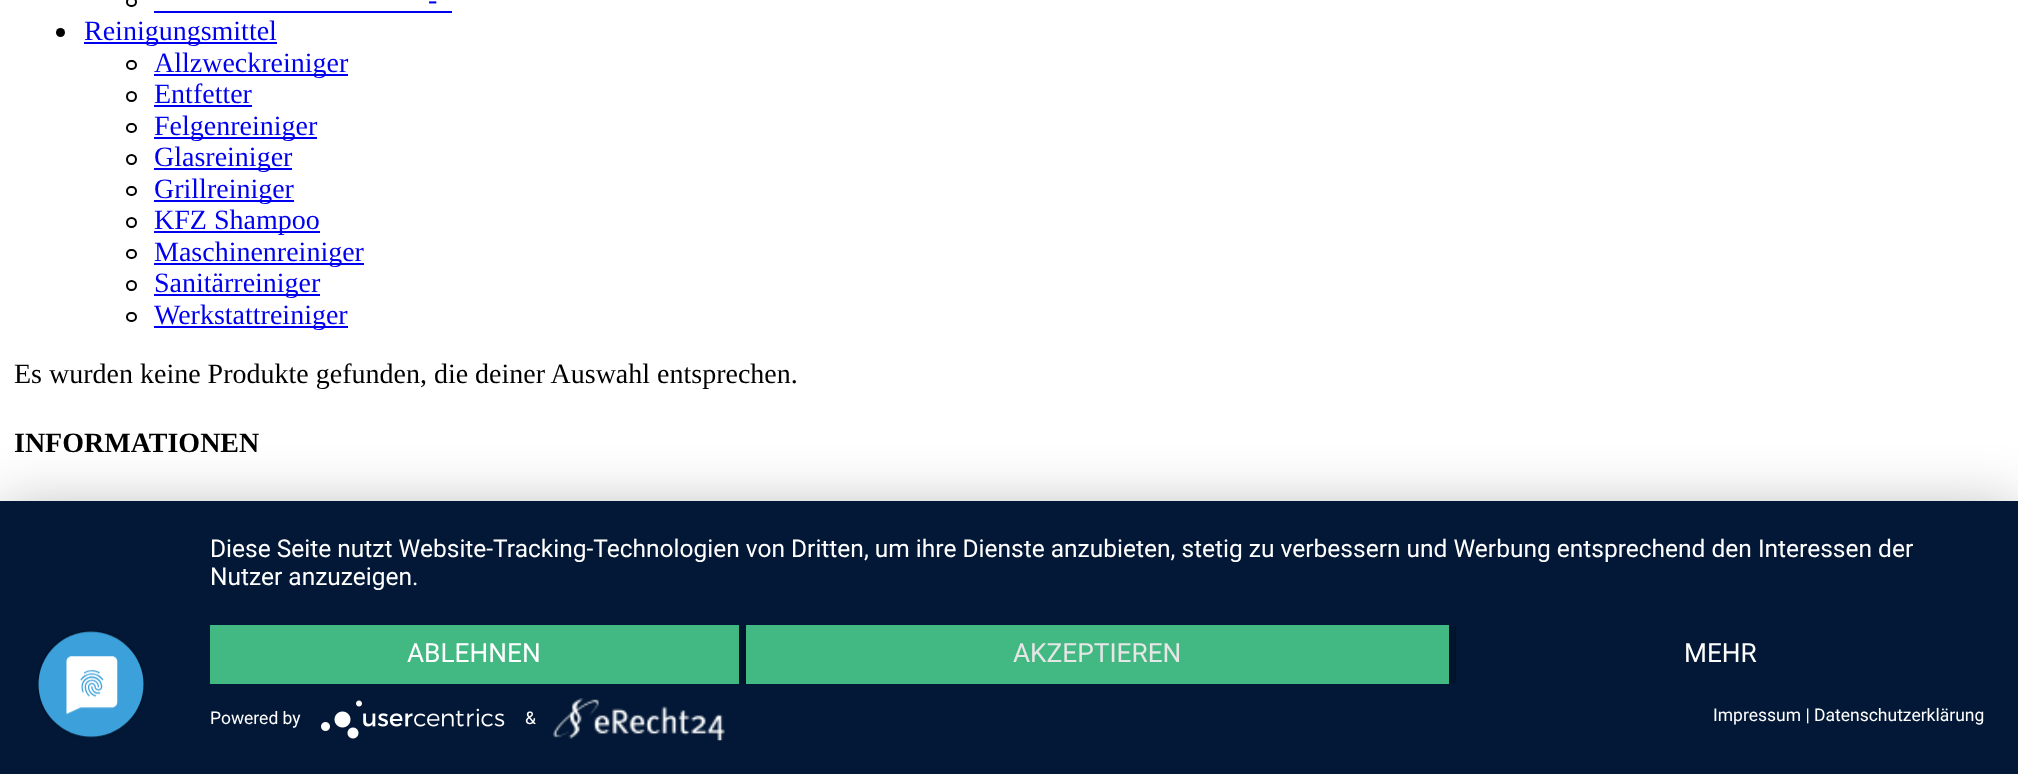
<svg xmlns="http://www.w3.org/2000/svg" width="2018" height="774" viewBox="0 0 2018 774">
  <style>
    .t1 { font: 28px Liberation Serif; fill: #00e; }
    .t2 { font: 28px Liberation Serif; fill: #000; }
    .t3 { font: bold 28px Liberation Serif; fill: #000; }
    .t4 { font: 24.5px Roboto; fill: #fff; }
    .t5 { font: 26.25px Roboto; fill: #fff; }
    .t6 { font: 26.25px Roboto; fill: #e6e6e6; }
    .t7 { font: 17.5px Roboto; fill: #fff; }
  </style>
  <defs>
    <clipPath id="clip1"><rect x="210" y="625" width="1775" height="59"/></clipPath>
  </defs>
  <rect width="100%" height="100%" fill="#fff"/>
  <rect x="127" y="-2" width="9" height="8" rx="4" fill="none" stroke="#000" stroke-width="2"/>
  <text x="428" y="9" class="t1">-</text>
  <rect x="154" y="11" width="298" height="2" fill="#00e"/>
  <circle cx="60.5" cy="32.5" r="4.5" fill="#000"/>
  <rect x="84" y="42" width="193" height="2" fill="#00e"/>
  <text x="84" y="40" class="t1">Reinigungsmittel</text>
  <rect x="127" y="61" width="9" height="8" rx="4" fill="none" stroke="#000" stroke-width="2"/>
  <rect x="154" y="74" width="194" height="2" fill="#00e"/>
  <text x="154" y="72" class="t1">Allzweckreiniger</text>
  <circle cx="131.5" cy="96.5" r="4.5" fill="none" stroke="#000" stroke-width="2"/>
  <text x="154" y="103" class="t1">Entfetter</text>
  <rect x="154" y="105" width="98" height="2" fill="#00e"/>
  <rect x="127" y="124" width="9" height="8" rx="4" fill="none" stroke="#000" stroke-width="2"/>
  <rect x="154" y="137" width="163" height="2" fill="#00e"/>
  <text x="154" y="135" class="t1">Felgenreiniger</text>
  <circle cx="131.5" cy="159.5" r="4.5" fill="none" stroke="#000" stroke-width="2"/>
  <rect x="154" y="168" width="138" height="2" fill="#00e"/>
  <text x="154" y="166" class="t1">Glasreiniger</text>
  <rect x="127" y="187" width="9" height="8" rx="4" fill="none" stroke="#000" stroke-width="2"/>
  <rect x="154" y="200" width="140" height="2" fill="#00e"/>
  <text x="154" y="198" class="t1">Grillreiniger</text>
  <circle cx="131.5" cy="222.5" r="4.5" fill="none" stroke="#000" stroke-width="2"/>
  <rect x="154" y="231" width="166" height="2" fill="#00e"/>
  <text x="154" y="229" class="t1">KFZ Shampoo</text>
  <rect x="127" y="250" width="9" height="8" rx="4" fill="none" stroke="#000" stroke-width="2"/>
  <rect x="154" y="263" width="210" height="2" fill="#00e"/>
  <text x="154" y="261" class="t1">Maschinenreiniger</text>
  <circle cx="131.5" cy="285.5" r="4.5" fill="none" stroke="#000" stroke-width="2"/>
  <rect x="154" y="294" width="166" height="2" fill="#00e"/>
  <text x="154" y="292" class="t1">Sanitärreiniger</text>
  <rect x="127" y="313" width="9" height="8" rx="4" fill="none" stroke="#000" stroke-width="2"/>
  <rect x="154" y="326" width="194" height="2" fill="#00e"/>
  <text x="154" y="324" class="t1">Werkstattreiniger</text>
  <text x="14" y="383" class="t2">Es wurden keine Produkte gefunden, die deiner Auswahl entsprechen.</text>
  <text x="14" y="452" class="t3">INFORMATIONEN</text>
  <rect x="0" y="511" width="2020" height="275" fill="#0000004d" filter="blur(31.5px)"/>
  <rect x="0" y="501" width="2018" height="273" fill="#021836"/>
  <image x="37" y="630" width="108" height="108" href="images/1.png"/>
  <text x="210" y="557" class="t4">Diese Seite nutzt Website-Tracking-Technologien von Dritten, um ihre Dienste anzubieten, stetig zu verbessern und Werbung entsprechend den Interessen der</text>
  <text x="210" y="585" class="t4">Nutzer anzuzeigen.</text>
  <g clip-path="url(#clip1)">
    <rect x="210" y="627" width="529" height="59" fill="#00000066" filter="blur(3.5px)"/>
  </g>
  <rect x="210" y="625" width="529" height="59" fill="#42b983"/>
  <text x="407" y="662" class="t5">ABLEHNEN</text>
  <g clip-path="url(#clip1)">
    <rect x="746" y="627" width="703" height="59" fill="#00000066" filter="blur(3.5px)"/>
  </g>
  <rect x="746" y="625" width="703" height="59" fill="#42b983"/>
  <text x="1013" y="662" class="t6">AKZEPTIEREN</text>
  <g clip-path="url(#clip1)">
    <rect x="1456" y="627" width="529" height="59" fill="#00000066" filter="blur(3.5px)"/>
  </g>
  <rect x="1456" y="625" width="529" height="59" fill="#021836"/>
  <text x="1684" y="662" class="t5">MEHR</text>
  <text x="210" y="724" class="t7">Powered by</text>
  <image x="321" y="700" width="184" height="39" href="images/2.png"/>
  <text x="525" y="724" class="t7">&amp;</text>
  <image x="553" y="698" width="172" height="43" href="images/3.png"/>
  <text x="1713" y="721" class="t7">Impressum | Datenschutzerklärung</text>
</svg>
